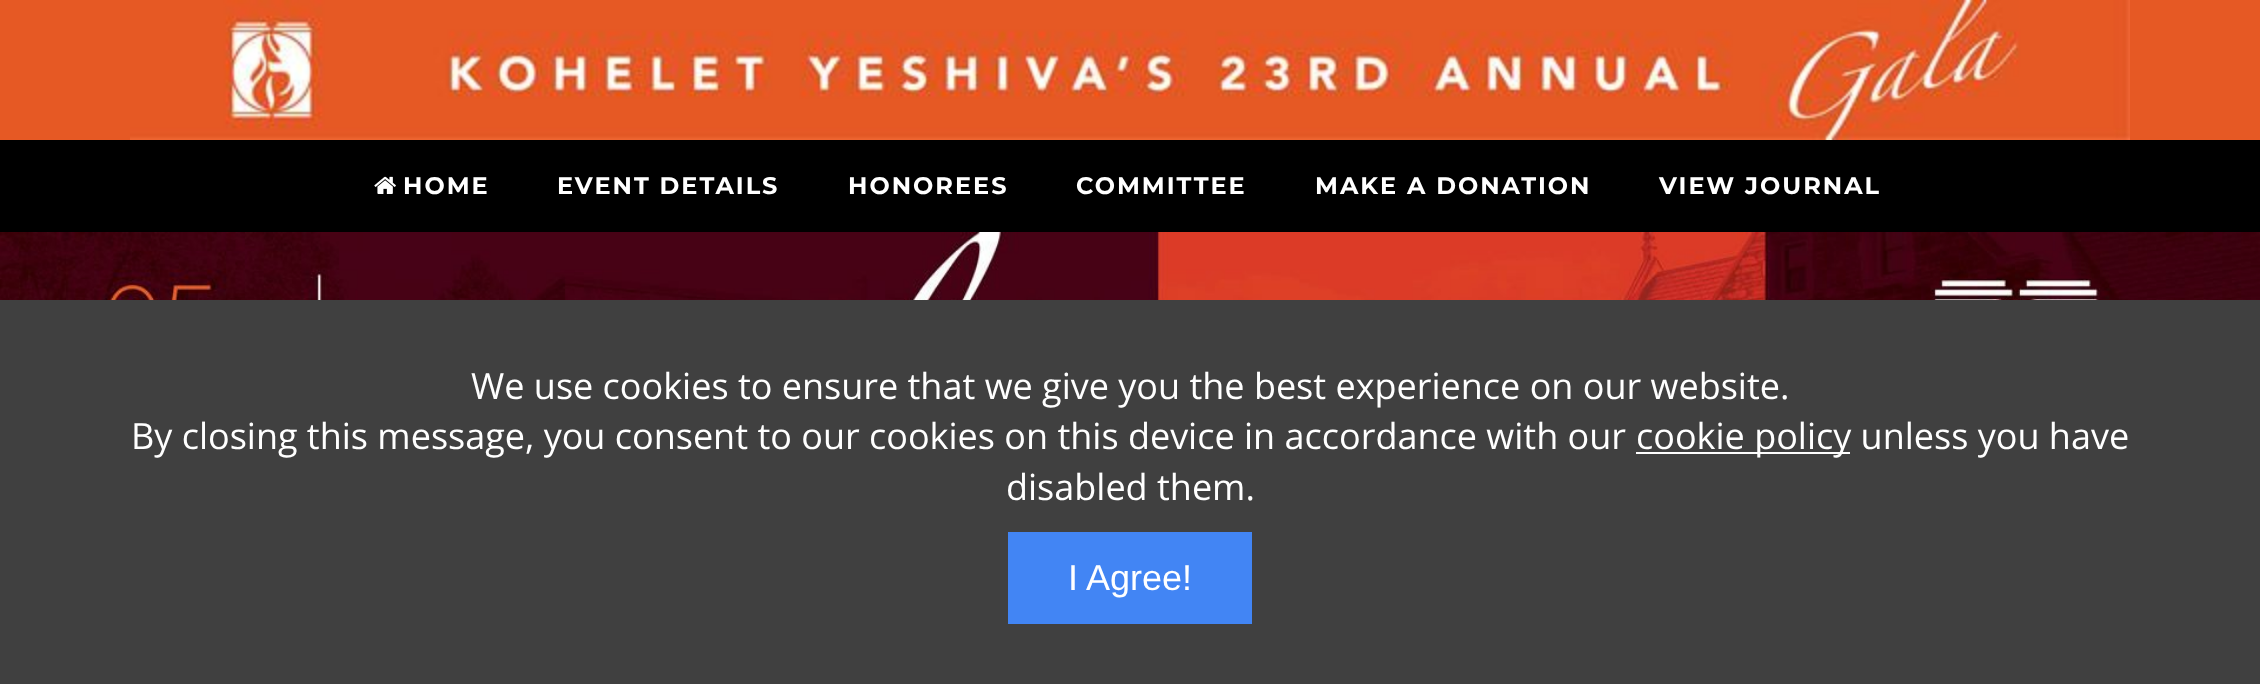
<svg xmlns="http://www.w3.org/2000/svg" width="2260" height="684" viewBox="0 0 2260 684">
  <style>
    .t1 { font: bold 24px Montserrat; letter-spacing: 2px; fill: #fff; }
    .t2 { font: 36px Open Sans; fill: #fff; }
    .t3 { font: 36px Liberation Sans; fill: #fff; }
  </style>
  <rect width="100%" height="100%" fill="#e65924"/>
  <image x="130" y="0" width="2000" height="140" href="images/1.png"/>
  <rect x="0" y="140" width="2260" height="92" fill="#000"/>
  <image x="374" y="176" width="22" height="18" href="images/2.png"/>
  <text x="403" y="194" class="t1">HOME</text>
  <text x="557" y="194" class="t1">EVENT DETAILS</text>
  <text x="848" y="194" class="t1">HONOREES</text>
  <text x="1076" y="194" class="t1">COMMITTEE</text>
  <text x="1315" y="194" class="t1">MAKE A DONATION</text>
  <text x="1659" y="194" class="t1">VIEW JOURNAL</text>
  <image x="0" y="232" width="2260" height="68" href="images/3.png"/>
  <rect x="0" y="300" width="2260" height="384" fill="#404040"/>
  <text x="471" y="399" class="t2">We use cookies to ensure that we give you the best experience on our website.</text>
  <text x="131" y="449" class="t2">By closing this message, you consent to our cookies on this device in accordance with our</text>
  <rect x="1636" y="452" width="214" height="2" fill="#fff"/>
  <text x="1636" y="449" class="t2">cookie policy unless you have</text>
  <text x="1006" y="500" class="t2">disabled them.</text>
  <rect x="1008" y="532" width="244" height="92" fill="#4285f4"/>
  <text x="1068" y="590" class="t3">I Agree!</text>
</svg>
